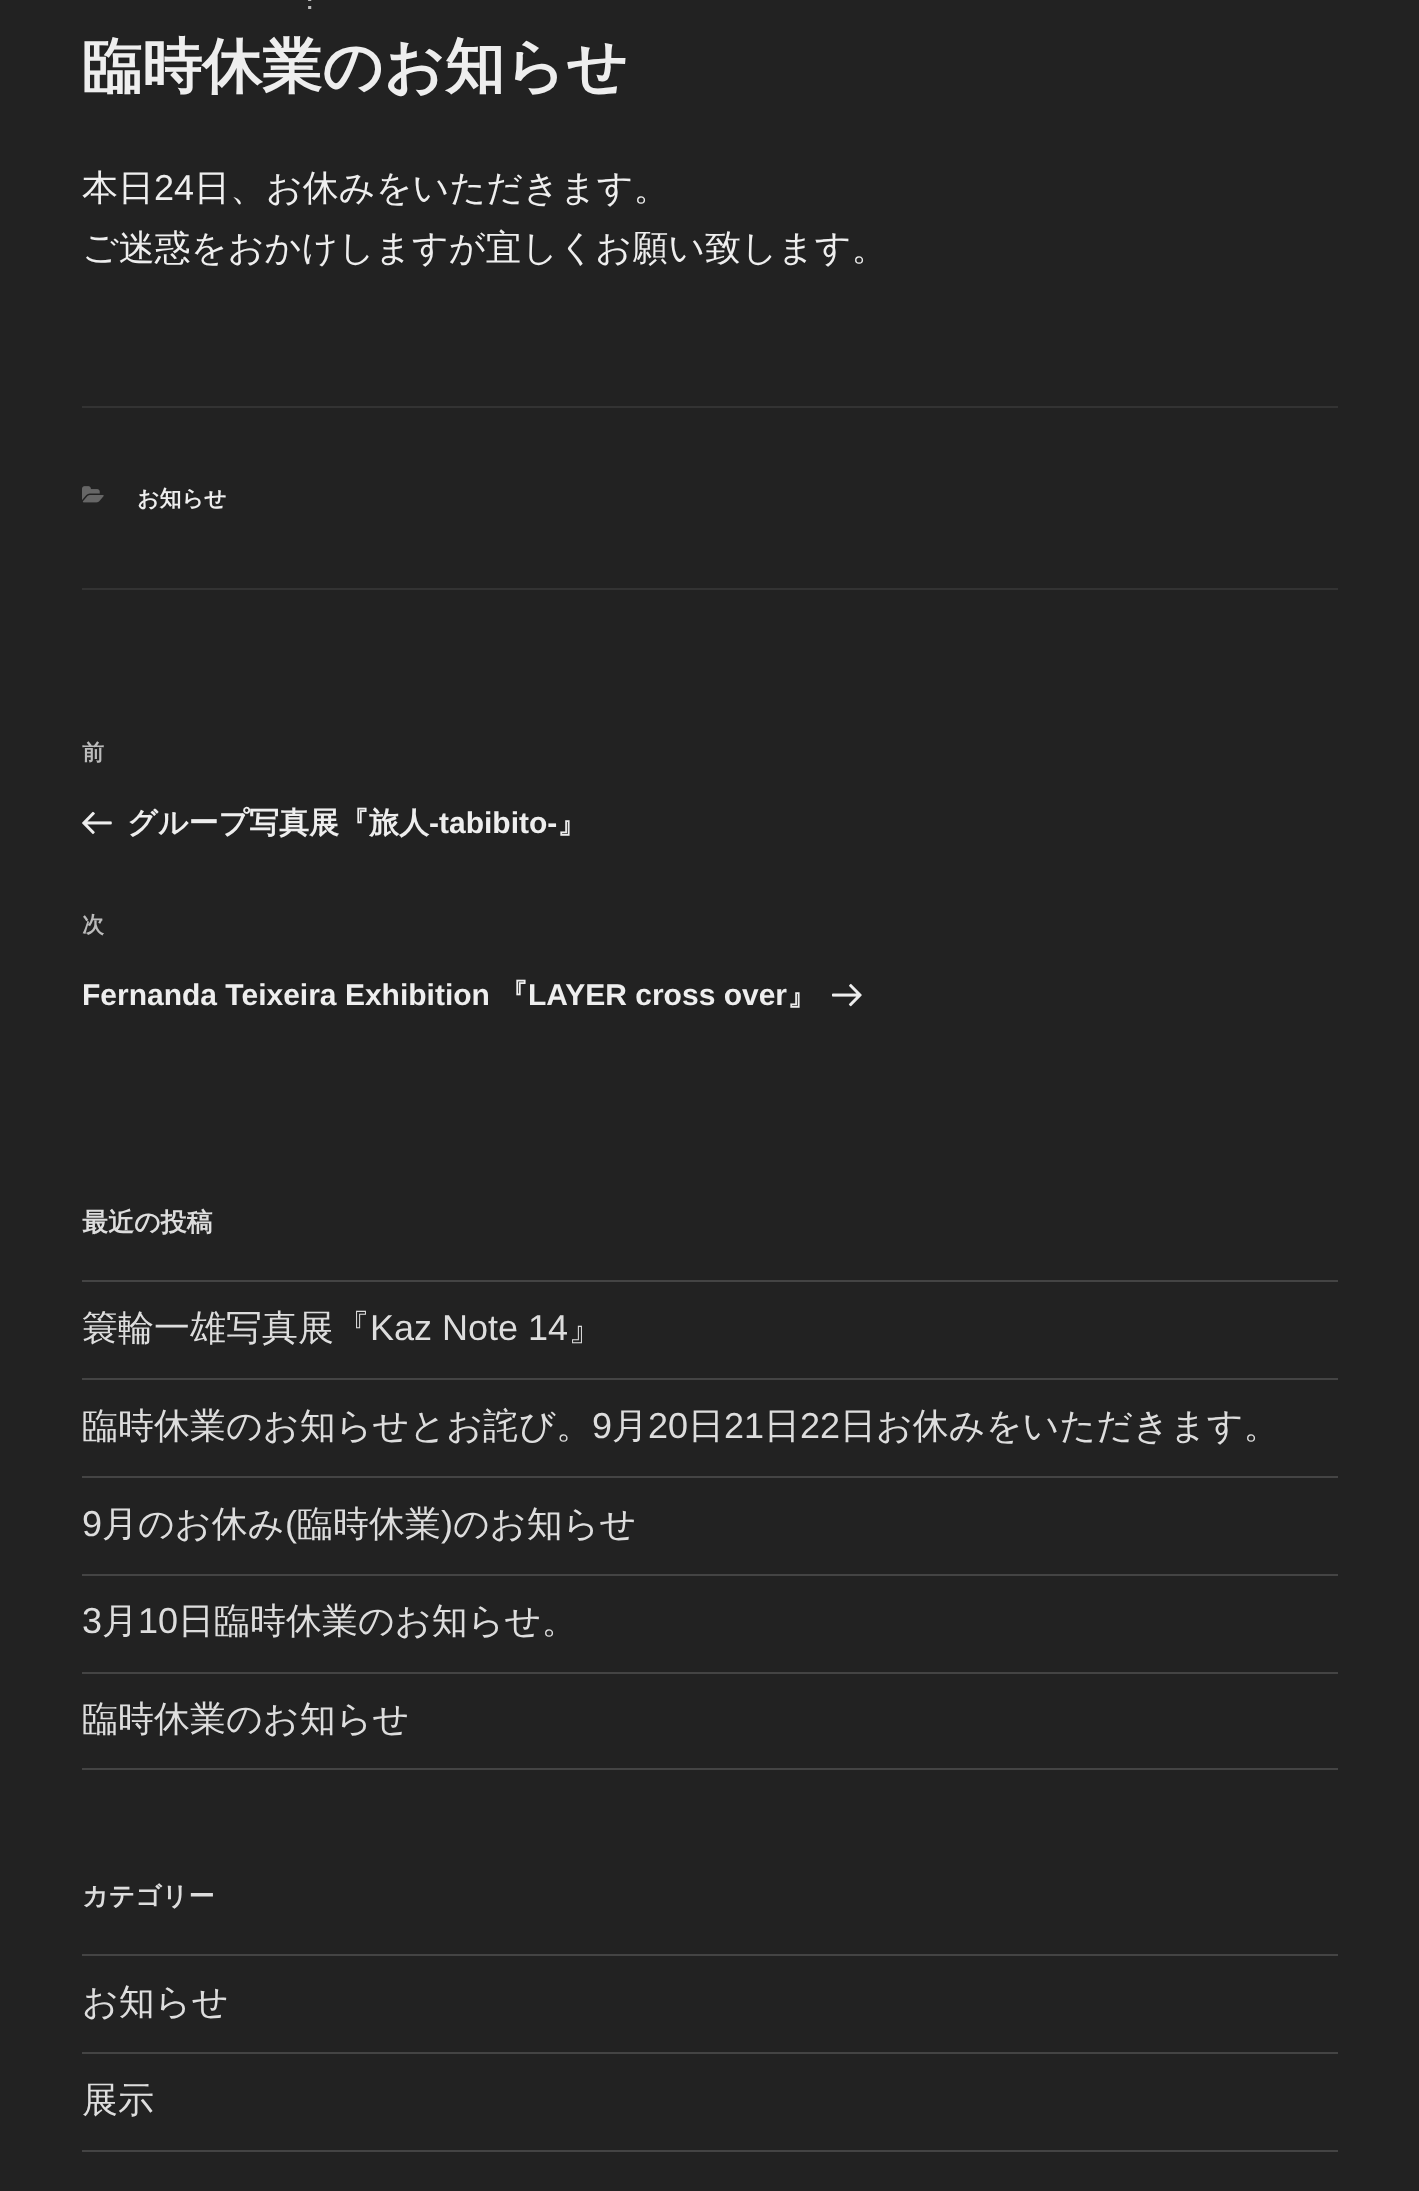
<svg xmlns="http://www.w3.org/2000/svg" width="1419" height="2191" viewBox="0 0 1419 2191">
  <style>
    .t1 { font: bold 22px Liberation Sans; fill: #bbb; }
    .t2 { font: bold 60px WenQuanYi Zen Hei; fill: #eee; }
    .t3 { font: 500 36px WenQuanYi Zen Hei; fill: #eee; }
    .t4 { font: 36px Liberation Sans; fill: #eee; }
    .t5 { font: bold 22px WenQuanYi Zen Hei; fill: #eee; }
    .t6 { font: bold 22px WenQuanYi Zen Hei; fill: #bbb; }
    .t7 { font: bold 30px WenQuanYi Zen Hei; fill: #eee; }
    .t8 { font: bold 30px Liberation Sans; fill: #eee; }
    .t9 { font: bold 26px WenQuanYi Zen Hei; fill: #ddd; }
    .t10 { font: 500 36px WenQuanYi Zen Hei; fill: #ddd; }
    .t11 { font: 36px Liberation Sans; fill: #ddd; }
  </style>
  <rect width="100%" height="100%" fill="#222"/>
  <text x="306" y="9" class="t1">:</text>
  <text x="82" y="87" class="t2">臨時休業のお知らせ</text>
  <text x="82" y="200" class="t3">本日</text>
  <text x="154" y="200" class="t4">24</text>
  <text x="194" y="200" class="t3">日、お休みをいただきます。</text>
  <text x="82" y="260" class="t3">ご迷惑をおかけしますが宜しくお願い致します。</text>
  <rect x="82" y="406" width="1256" height="2" fill="#333"/>
  <rect x="82" y="588" width="1256" height="2" fill="#333"/>
  <image x="82" y="486" width="22" height="17" href="images/1.png"/>
  <text x="137" y="506" class="t5">お知らせ</text>
  <text x="82" y="760" class="t6">前</text>
  <image x="82" y="811" width="30" height="24" href="images/2.png"/>
  <text x="127" y="833" class="t7">グループ写真展『旅人</text>
  <text x="429" y="833" class="t8">-tabibito-</text>
  <text x="557" y="833" class="t7">』</text>
  <text x="82" y="932" class="t6">次</text>
  <text x="82" y="1005" class="t8">Fernanda Teixeira Exhibition</text>
  <text x="498" y="1005" class="t7">『</text>
  <text x="528" y="1005" class="t8">LAYER cross over</text>
  <text x="787" y="1005" class="t7">』</text>
  <image x="832" y="983" width="30" height="24" href="images/3.png"/>
  <text x="82" y="1231" class="t9">最近の投稿</text>
  <rect x="82" y="1280" width="1256" height="2" fill="#444"/>
  <rect x="82" y="1378" width="1256" height="2" fill="#444"/>
  <text x="82" y="1340" class="t10">簑輪一雄写真展『</text>
  <text x="370" y="1340" class="t11">Kaz Note 14</text>
  <text x="568" y="1340" class="t10">』</text>
  <rect x="82" y="1476" width="1256" height="2" fill="#444"/>
  <text x="82" y="1438" class="t10">臨時休業のお知らせとお詫び。</text>
  <text x="592" y="1438" class="t11">9</text>
  <text x="612" y="1438" class="t10">月</text>
  <text x="648" y="1438" class="t11">20</text>
  <text x="688" y="1438" class="t10">日</text>
  <text x="724" y="1438" class="t11">21</text>
  <text x="764" y="1438" class="t10">日</text>
  <text x="800" y="1438" class="t11">22</text>
  <text x="840" y="1438" class="t10">日お休みをいただきます。</text>
  <rect x="82" y="1574" width="1256" height="2" fill="#444"/>
  <text x="82" y="1536" class="t11">9</text>
  <text x="102" y="1536" class="t10">月のお休み</text>
  <text x="285" y="1536" class="t11">(</text>
  <text x="297" y="1536" class="t10">臨時休業</text>
  <text x="441" y="1536" class="t11">)</text>
  <text x="453" y="1536" class="t10">のお知らせ</text>
  <rect x="82" y="1672" width="1256" height="2" fill="#444"/>
  <text x="82" y="1633" class="t11">3</text>
  <text x="102" y="1633" class="t10">月</text>
  <text x="138" y="1633" class="t11">10</text>
  <text x="178" y="1633" class="t10">日臨時休業のお知らせ。</text>
  <rect x="82" y="1768" width="1256" height="2" fill="#444"/>
  <text x="82" y="1731" class="t10">臨時休業のお知らせ</text>
  <text x="82" y="1905" class="t9">カテゴリー</text>
  <rect x="82" y="1954" width="1256" height="2" fill="#444"/>
  <rect x="82" y="2052" width="1256" height="2" fill="#444"/>
  <text x="82" y="2014" class="t10">お知らせ</text>
  <rect x="82" y="2150" width="1256" height="2" fill="#444"/>
  <text x="82" y="2112" class="t10">展示</text>
</svg>
